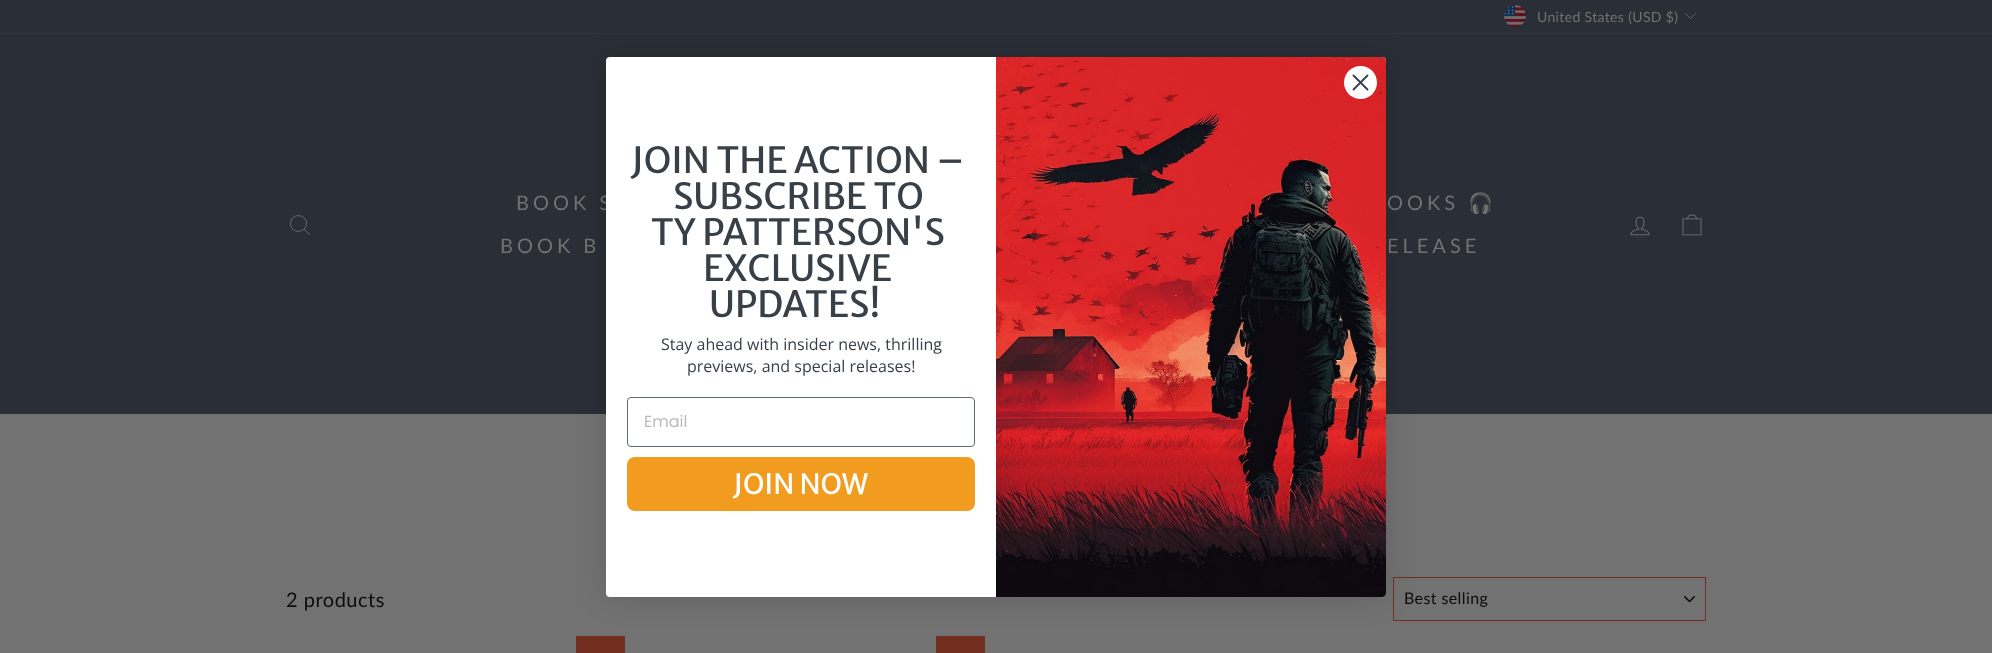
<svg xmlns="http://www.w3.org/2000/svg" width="1992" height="653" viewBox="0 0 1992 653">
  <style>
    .t1 { font: 14px Lato; letter-spacing: 0.35px; fill: #727272; }
    .t2 { font: 20px Lato; letter-spacing: 4px; fill: #727272; }
    .t3 { font: 20px Noto Color Emoji; letter-spacing: 4px; fill: #727272; }
    .t4 { font: 20px Lato; letter-spacing: 0.5px; fill: #0c0c0c; }
    .t5 { font: 16px Lato; letter-spacing: 0.4px; fill: #0c0c0c; }
    .t6 { font: 36px Merriweather Sans; fill: #373f47; }
    .t7 { font: 16px Open Sans; fill: #373f47; }
    .t8 { font: 16px Poppins; fill: #bbb; }
    .t9 { font: 28px Merriweather Sans; fill: #fff; }
  </style>
  <rect width="100%" height="100%" fill="#727272"/>
  <rect x="0" y="0" width="1992" height="33" fill="#2a2e36"/>
  <image x="1504" y="5" width="22" height="22" href="images/1.png"/>
  <text x="1537" y="22" class="t1">United States (USD $)</text>
  <path d="M1685.5 13.5L1690.5 18.5L1695.5 13.5" fill="none" stroke="#727272" stroke-width="0.8" stroke-linecap="round" stroke-linejoin="round"/>
  <rect x="0" y="34" width="1992" height="380" fill="#2a2e36"/>
  <rect x="0" y="33" width="1992" height="1" fill="#31353c"/>
  <path d="M306.5 223.5C306.5 234 290.5 234 290.5 223.5C290.5 213 306.5 213 306.5 223.5ZM309.5 234.5L304.5 229.5" fill="none" stroke="#727272" stroke-width="0.9" stroke-linecap="round" stroke-linejoin="round"/>
  <text x="516" y="210" class="t2">BOOK S</text>
  <text x="500" y="253" class="t2">BOOK B</text>
  <text x="1387" y="210" class="t2">OOKS</text>
  <text x="1468" y="210" class="t3">🎧</text>
  <text x="1387" y="253" class="t2">ELEASE</text>
  <image x="1630" y="216" width="20" height="20" href="images/2.png"/>
  <image x="1682" y="214" width="20" height="22" href="images/3.png"/>
  <text x="286" y="607" class="t4">2 products</text>
  <image x="1684" y="596" width="11" height="6" href="images/4.png"/>
  <rect x="1393.5" y="577.5" width="312" height="43" fill="none" stroke="#722f20"/>
  <text x="1404" y="604" class="t5">Best selling</text>
  <rect x="576" y="636" width="49" height="17" fill="#722f20"/>
  <rect x="936" y="636" width="49" height="17" fill="#722f20"/>
  <rect x="606" y="57" width="780" height="540" rx="4" fill="#00000026" filter="blur(15px)"/>
  <rect x="606" y="57" width="780" height="540" rx="4" fill="#fff"/>
  <image x="996" y="57" width="390" height="540" href="images/5.png"/>
  <circle cx="1360.5" cy="82.5" r="16.5" fill="#fff"/>
  <path d="M1353.5 75.5L1367.5 89.5M1353.5 89.5L1367.5 75.5Z" fill="none" stroke="#373f47" stroke-width="1.8" stroke-linecap="round" stroke-linejoin="round"/>
  <text x="631" y="173" class="t6">JOIN THE ACTION –</text>
  <text x="673" y="209" class="t6">SUBSCRIBE TO</text>
  <text x="651" y="245" class="t6">TY PATTERSON'S</text>
  <text x="703" y="281" class="t6">EXCLUSIVE</text>
  <text x="709" y="317" class="t6">UPDATES!</text>
  <text x="661" y="350" class="t7">Stay ahead with insider news, thrilling</text>
  <text x="687" y="372" class="t7">previews, and special releases!</text>
  <rect x="627.5" y="397.5" width="347" height="49" rx="3.5" fill="none" stroke="#606a72"/>
  <text x="644" y="427" class="t8">Email</text>
  <rect x="627" y="457" width="348" height="54" rx="8" fill="#f29c1f"/>
  <text x="733" y="494" class="t9">JOIN NOW</text>
</svg>
